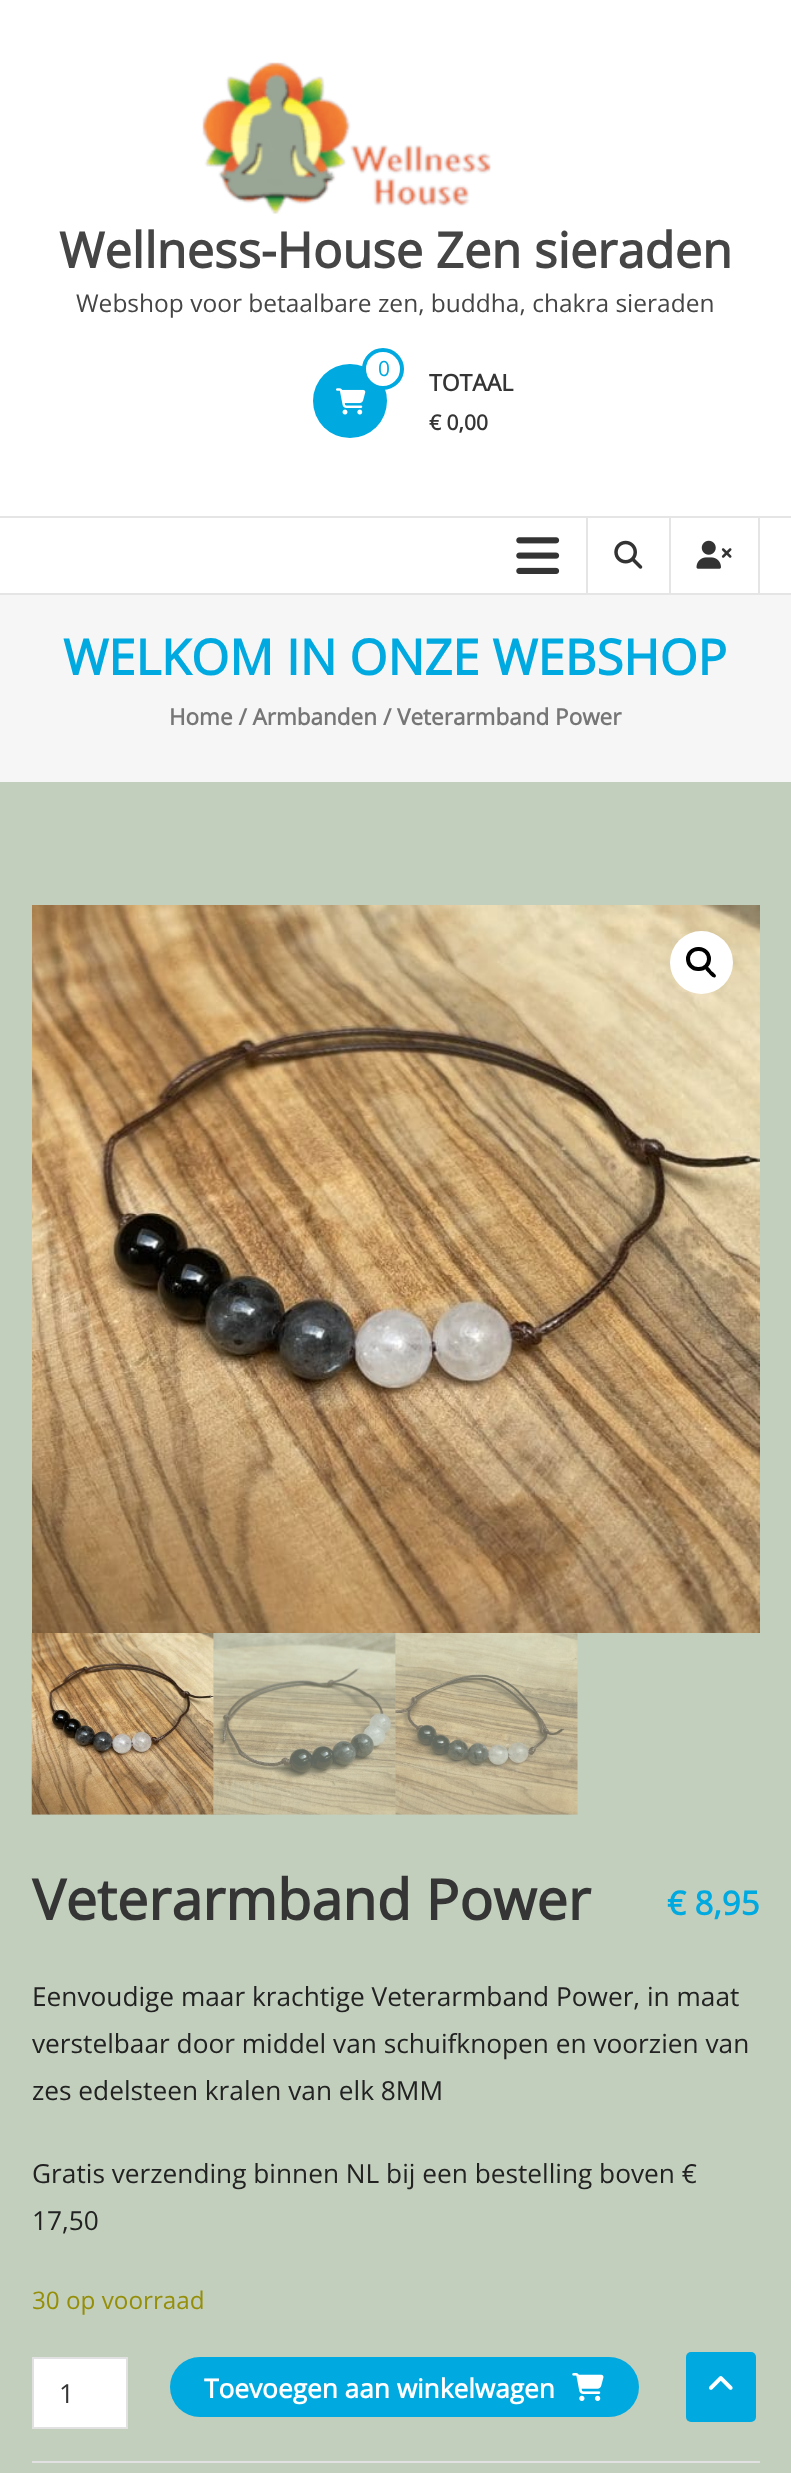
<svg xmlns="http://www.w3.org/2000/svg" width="791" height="2473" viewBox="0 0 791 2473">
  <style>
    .t1 { font: bold 49px Open Sans; fill: #454545; }
    .t2 { font: 24.5px Open Sans; fill: #454545; }
    .t3 { font: 21px Open Sans; fill: #00a9e0; }
    .t4 { font: bold 23px Open Sans; fill: #353535; }
    .t5 { font: bold 21px Open Sans; fill: #353535; }
    .t6 { font: bold 49px Open Sans; fill: #00a9e0; }
    .t7 { font: bold 22.5px Open Sans; fill: #767676; }
    .t8 { font: bold 56px Open Sans; fill: #353535; }
    .t9 { font: bold 33px Open Sans; fill: #00a9e0; }
    .t10 { font: 26.25px Open Sans; fill: #222; }
    .t11 { font: 24.25px Open Sans; fill: #958e09; }
    .t12 { font: 26.25px Open Sans; fill: #353535; }
    .t13 { font: bold 26.25px Open Sans; fill: #fff; }
  </style>
  <rect width="100%" height="100%" fill="#c2cfbd"/>
  <rect x="0" y="0" width="791" height="516" fill="#fff"/>
  <image x="202" y="62" width="289" height="152" href="images/1.png"/>
  <text x="59" y="268" class="t1">Wellness-House Zen sieraden</text>
  <text x="76" y="312" class="t2">Webshop voor betaalbare zen, buddha, chakra sieraden</text>
  <circle cx="350" cy="401" r="37" fill="#00a9e0"/>
  <image x="336" y="388" width="30" height="27" href="images/2.png"/>
  <circle cx="383" cy="369" r="19" fill="#fff" stroke="#00a9e0" stroke-width="4"/>
  <text x="378" y="376" class="t3">0</text>
  <text x="429" y="391" class="t4">TOTAAL</text>
  <text x="429" y="430" class="t5">€ 0,00</text>
  <rect x="0" y="518" width="791" height="75" fill="#fff"/>
  <rect x="0" y="516" width="791" height="2" fill="#e5e5e5"/>
  <rect x="0" y="593" width="791" height="2" fill="#e5e5e5"/>
  <image x="516" y="537" width="44" height="37" href="images/3.png"/>
  <rect x="586" y="518" width="2" height="75" fill="#e5e5e5"/>
  <image x="614" y="540" width="29" height="29" href="images/4.png"/>
  <rect x="758" y="518" width="2" height="75" fill="#e5e5e5"/>
  <rect x="669" y="518" width="2" height="75" fill="#e5e5e5"/>
  <image x="696" y="540" width="36" height="29" href="images/5.png"/>
  <rect x="0" y="595" width="791" height="187" fill="#f6f6f6"/>
  <text x="63" y="675" class="t6">WELKOM IN ONZE WEBSHOP</text>
  <text x="169" y="725" class="t7">Home / Armbanden / Veterarmband Power</text>
  <image x="32" y="905" width="728" height="728" href="images/6.png"/>
  <circle cx="701.5" cy="962.5" r="31.5" fill="#fff"/>
  <rect x="688" y="949" width="21" height="20" rx="10" fill="none" stroke="#000" stroke-width="4"/>
  <path d="M705.5 967C707.5 965 710.5 969.5 711.5 971C712.5 972 717.5 975 715.5 977C713.5 979 710 974.5 709 973.5C708 972 703.5 969 705.5 967Z" fill="#000"/>
  <image x="31" y="1633" width="183" height="182" href="images/7.png"/>
  <image x="213" y="1633" width="183" height="182" href="images/8.png"/>
  <image x="395" y="1633" width="183" height="182" href="images/9.png"/>
  <text x="32" y="1920" class="t8">Veterarmband Power</text>
  <text x="667" y="1915" class="t9">€ 8,95</text>
  <text x="32" y="2006" class="t10">Eenvoudige maar krachtige Veterarmband Power, in maat</text>
  <text x="32" y="2053" class="t10">verstelbaar door middel van schuifknopen en voorzien van</text>
  <text x="32" y="2100" class="t10">zes edelsteen kralen van elk 8MM</text>
  <text x="32" y="2183" class="t10">Gratis verzending binnen NL bij een bestelling boven €</text>
  <text x="32" y="2230" class="t10">17,50</text>
  <text x="32" y="2309" class="t11">30 op voorraad</text>
  <rect x="33" y="2358" width="94" height="70" fill="#fff" stroke="#e1e1e1" stroke-width="2"/>
  <text x="59" y="2403" class="t12">1</text>
  <rect x="170" y="2357" width="469" height="60" rx="30" fill="#00a9e0"/>
  <text x="204" y="2398" class="t13">Toevoegen aan winkelwagen</text>
  <image x="572" y="2373" width="32" height="28" href="images/10.png"/>
  <rect x="32" y="2461" width="728" height="2" fill="#e1e1e1"/>
  <rect x="686" y="2352" width="70" height="70" rx="5" fill="#00a9e0"/>
  <image x="709" y="2376" width="24" height="14" href="images/11.png"/>
</svg>
